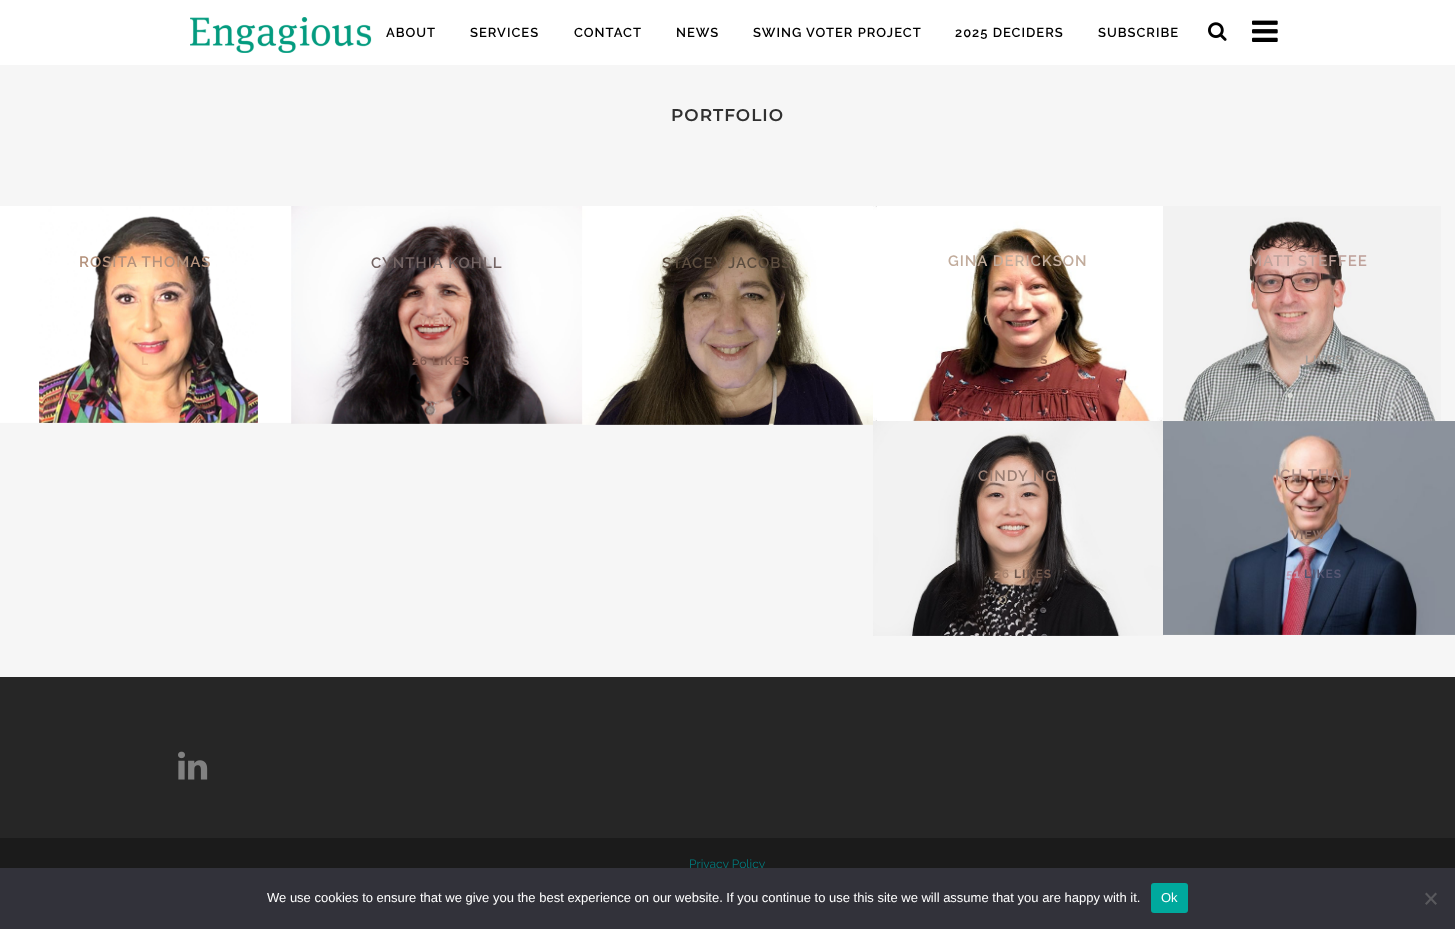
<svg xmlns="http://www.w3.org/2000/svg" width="1455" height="929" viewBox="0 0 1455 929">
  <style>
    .t1 { font: 600 13px Raleway; letter-spacing: 1px; fill: #000; }
    .t2 { font: 600 17px Montserrat; letter-spacing: 1px; fill: #303030; }
    .t3 { font: 600 15px Raleway; letter-spacing: 1px; fill: #b4927c; }
    .t4 { font: bold 12px Raleway; letter-spacing: 1px; fill: #efb98f; }
    .t5 { font: 600 15px Raleway; letter-spacing: 1px; fill: #736463; }
    .t6 { font: bold 12px Raleway; letter-spacing: 1px; fill: #cb9283; }
    .t7 { font: bold 12px Raleway; letter-spacing: 1px; fill: #865d53; }
    .t8 { font: bold 12px Raleway; letter-spacing: 1px; fill: #8d6458; }
    .t9 { font: 600 15px Raleway; letter-spacing: 1px; fill: #5c4d3f; }
    .t10 { font: 600 15px Raleway; letter-spacing: 1px; fill: #c2ac9c; }
    .t11 { font: bold 12px Raleway; letter-spacing: 1px; fill: #a2725a; }
    .t12 { font: 600 15px Raleway; letter-spacing: 1px; fill: #bfa29b; }
    .t13 { font: bold 12px Raleway; letter-spacing: 1px; fill: #a39d99; }
    .t14 { font: 600 15px Raleway; letter-spacing: 1px; fill: #9b7f73; }
    .t15 { font: bold 12px Raleway; letter-spacing: 1px; fill: #aa8570; }
    .t16 { font: bold 12px Raleway; letter-spacing: 1px; fill: #6e574c; }
    .t17 { font: 600 15px Raleway; letter-spacing: 1px; fill: #af9088; }
    .t18 { font: bold 12px Raleway; letter-spacing: 1px; fill: #8a6e65; }
    .t19 { font: bold 12px Raleway; letter-spacing: 1px; fill: #c09db6; }
    .t20 { font: bold 12px Raleway; letter-spacing: 1px; fill: #545570; }
    .t21 { font: 12px Raleway; fill: #027b7e; }
    .t22 { font: 13px Liberation Sans; fill: #fff; }
  </style>
  <rect width="100%" height="100%" fill="#f6f6f6"/>
  <rect x="0" y="0" width="1455" height="65" fill="#fff"/>
  <image x="190" y="17" width="182" height="36" href="images/1.png"/>
  <text x="386" y="37" class="t1">ABOUT</text>
  <text x="470" y="37" class="t1">SERVICES</text>
  <text x="574" y="37" class="t1">CONTACT</text>
  <text x="676" y="37" class="t1">NEWS</text>
  <text x="753" y="37" class="t1">SWING VOTER PROJECT</text>
  <text x="955" y="37" class="t1">2025 DECIDERS</text>
  <text x="1098" y="37" class="t1">SUBSCRIBE</text>
  <image x="1208" y="22" width="19" height="19" href="images/2.png"/>
  <image x="1252" y="20" width="26" height="22" href="images/3.png"/>
  <text x="671" y="121" class="t2">PORTFOLIO</text>
  <image x="0" y="206" width="292" height="217" href="images/4.png"/>
  <text x="79" y="267" class="t3">ROSITA THOMAS</text>
  <text x="141" y="365" class="t4">L</text>
  <image x="291" y="206" width="292" height="218" href="images/5.png"/>
  <text x="371" y="268" class="t5">CYNTHIA KOHLL</text>
  <text x="419" y="326" class="t6">VIEW</text>
  <text x="412" y="365" class="t7">26</text>
  <text x="432" y="365" class="t8">LIKES</text>
  <image x="582" y="206" width="292" height="219" href="images/6.png"/>
  <text x="662" y="268" class="t9">STACEY JACOBS</text>
  <image x="873" y="206" width="291" height="215" href="images/7.png"/>
  <text x="948" y="266" class="t10">GINA DERICKSON</text>
  <text x="1040" y="364" class="t11">S</text>
  <image x="1163" y="206" width="278" height="215" href="images/8.png"/>
  <text x="1249" y="266" class="t12">MATT STEFFEE</text>
  <text x="1305" y="364" class="t13">LIKES</text>
  <image x="873" y="421" width="291" height="215" href="images/9.png"/>
  <text x="978" y="481" class="t14">CINDY NG</text>
  <text x="994" y="578" class="t15">26</text>
  <text x="1014" y="578" class="t16">LIKES</text>
  <image x="1163" y="421" width="292" height="214" href="images/10.png"/>
  <text x="1275" y="480" class="t17">ICH THAU</text>
  <text x="1291" y="539" class="t18">VIEW</text>
  <text x="1286" y="578" class="t19">51</text>
  <text x="1304" y="578" class="t20">LIKES</text>
  <rect x="0" y="677" width="1455" height="161" fill="#262626"/>
  <image x="178" y="751" width="30" height="29" href="images/11.png"/>
  <rect x="0" y="838" width="1455" height="30" fill="#1b1b1b"/>
  <text x="689" y="868" class="t21">Privacy Policy</text>
  <rect x="0" y="868" width="1455" height="61" fill="#32323a"/>
  <text x="267" y="902" class="t22">We use cookies to ensure that we give you the best experience on our website. If you continue to use this site we will assume that you are happy with it.</text>
  <rect x="1151" y="883" width="37" height="30" rx="3" fill="#00a99d"/>
  <text x="1161" y="902" class="t22">Ok</text>
  <path d="M1435.5 892.5L1437 894L1426.5 905L1425 903.5Z" fill="#59595d"/>
  <path d="M1425 894L1426.5 892.5L1437 903.5L1435.5 905Z" fill="#59595d"/>
</svg>
